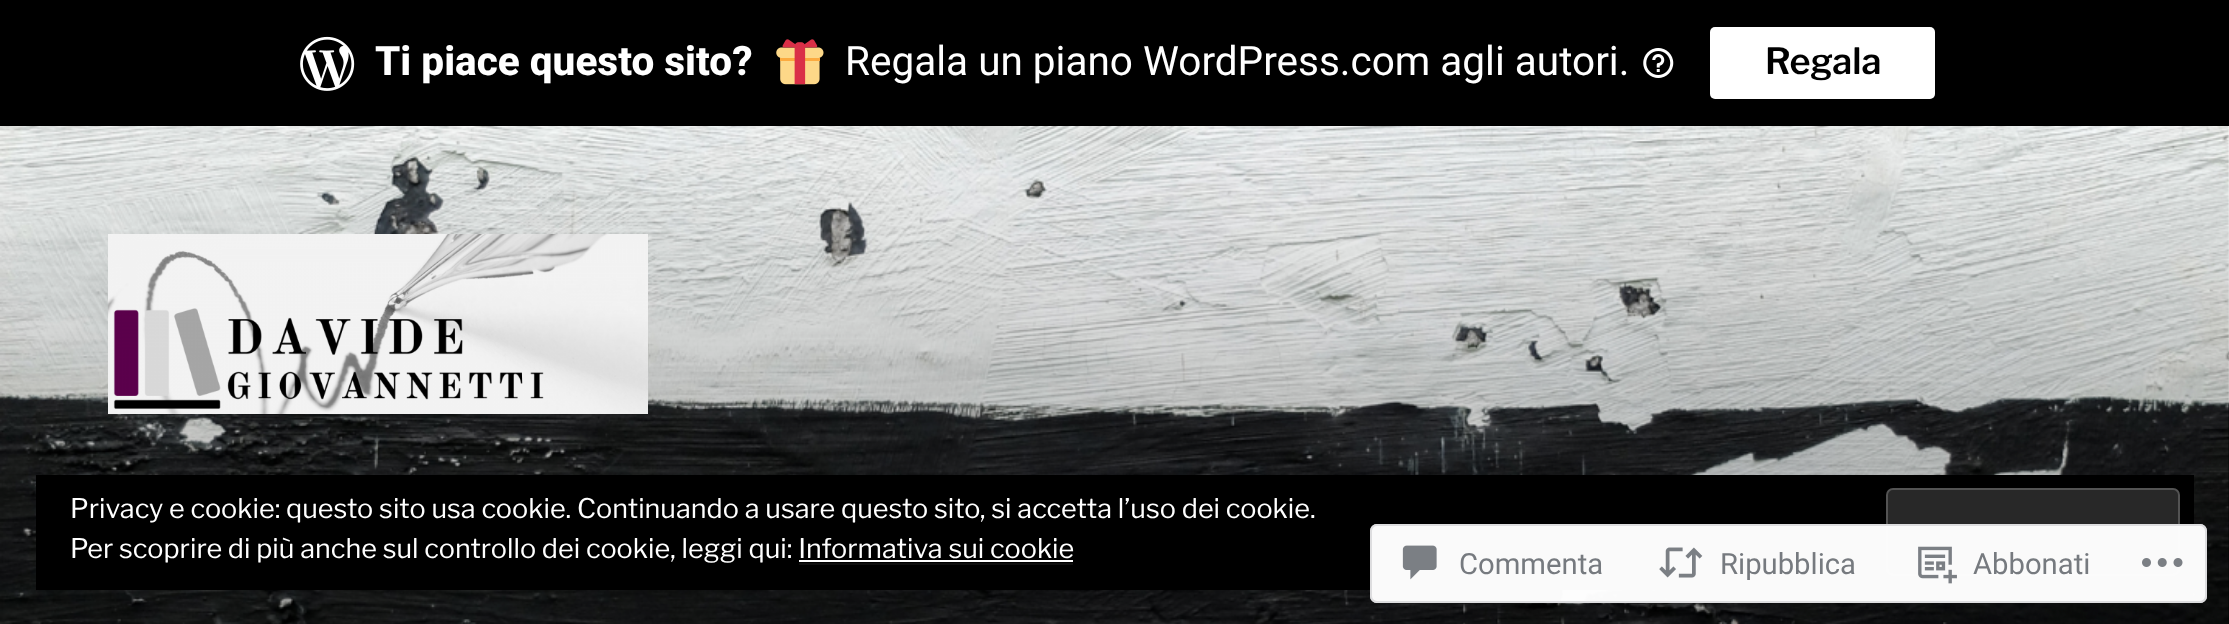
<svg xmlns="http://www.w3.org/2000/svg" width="2229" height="624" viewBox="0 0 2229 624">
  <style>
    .t1 { font: 800 40.5px Roboto; fill: #fff; }
    .t2 { font: 40.5px Roboto; fill: #fff; }
    .t3 { font: 100 36px Libre Franklin; fill: #000; }
    .t4 { font: 100 27px 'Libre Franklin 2'; fill: #fff; }
    .t5 { font: 29.25px Roboto; fill: #767a7f; }
  </style>
  <rect width="100%" height="100%" fill="#000"/>
  <image x="300" y="36" width="55" height="55" href="images/1.png"/>
  <text x="375" y="75" class="t1">Ti piace questo sito?</text>
  <image x="776" y="39" width="48" height="46" href="images/2.png"/>
  <text x="845" y="75" class="t2">Regala un piano WordPress.com agli autori.</text>
  <image x="1643" y="48" width="31" height="30" href="images/3.png"/>
  <rect x="1710" y="27" width="225" height="72" rx="5" fill="#fff"/>
  <text x="1765" y="74" class="t3">Regala</text>
  <image x="0" y="126" width="2229" height="498" href="images/4.png"/>
  <image x="108" y="234" width="540" height="180" href="images/5.png"/>
  <rect x="36" y="475" width="2158" height="115" fill="#000"/>
  <text x="70" y="518" class="t4">Privacy e cookie: questo sito usa cookie. Continuando a usare questo sito, si accetta l’uso dei cookie.</text>
  <rect x="1887" y="489" width="292" height="86" rx="6" fill="#282828" stroke="#535353" stroke-width="2"/>
  <text x="70" y="558" class="t4">Per scoprire di più anche sul controllo dei cookie, leggi qui: Informativa sui cookie</text>
  <rect x="799" y="560" width="274" height="2" fill="#fff"/>
  <rect x="799" y="563" width="274" height="2" fill="#0f0f0f"/>
  <rect x="1370" y="524" width="837" height="79" rx="7" fill="#fffffffa"/>
  <rect x="1371" y="525" width="835" height="77" rx="6" fill="none" stroke="#dcdcdefa" stroke-width="2"/>
  <image x="1402" y="545" width="35" height="35" href="images/6.png"/>
  <text x="1459" y="574" class="t5">Commenta</text>
  <image x="1659" y="547" width="44" height="31" href="images/7.png"/>
  <text x="1720" y="574" class="t5">Ripubblica</text>
  <image x="1918" y="546" width="39" height="38" href="images/8.png"/>
  <text x="1973" y="574" class="t5">Abbonati</text>
  <image x="2142" y="558" width="41" height="9" href="images/9.png"/>
</svg>
